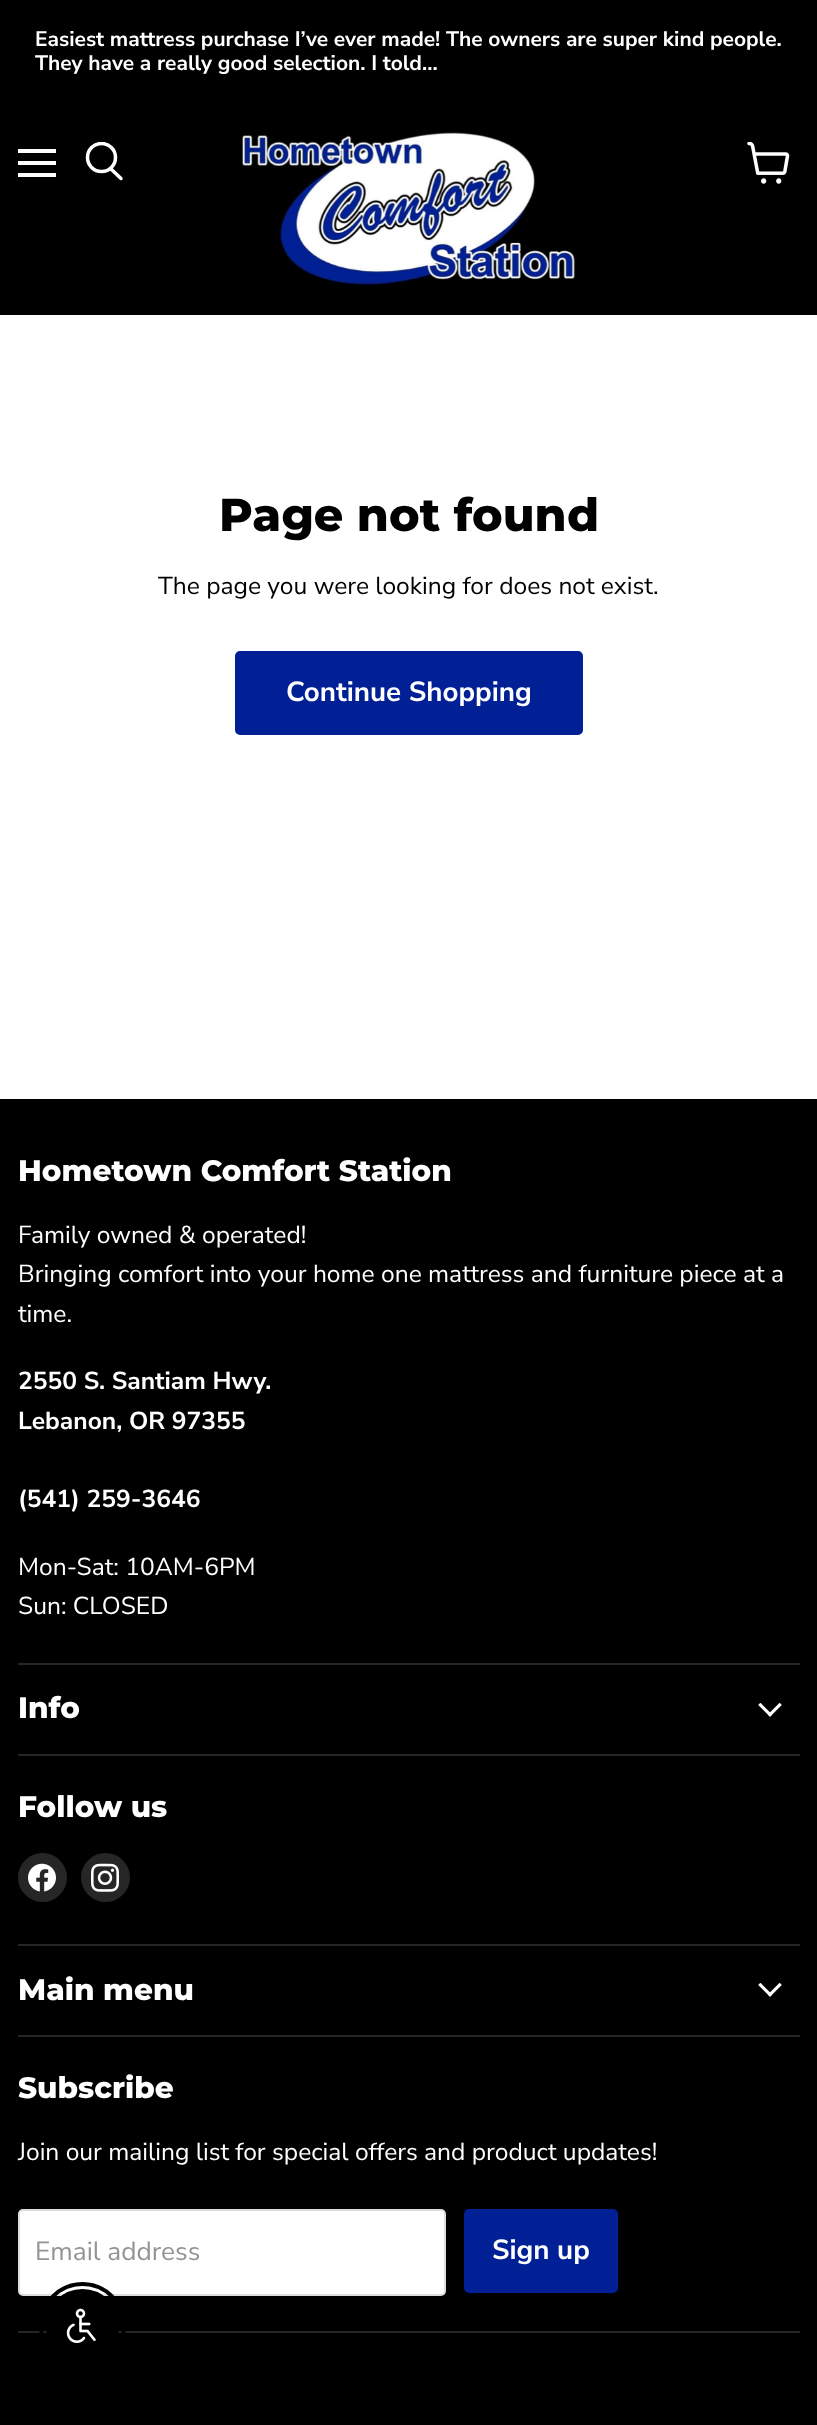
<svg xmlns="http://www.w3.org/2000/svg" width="817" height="2425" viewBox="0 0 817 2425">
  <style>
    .t1 { font: bold 21px Nunito Sans; fill: #fff; }
    .t2 { font: 800 46px Montserrat; fill: #000; }
    .t3 { font: 24.6px Nunito Sans; fill: #000; }
    .t4 { font: bold 27.75px Nunito Sans; fill: #fff; }
    .t5 { font: 800 29.5px Montserrat; fill: #fff; }
    .t6 { font: 24.6px Nunito Sans; fill: #fff; }
    .t7 { font: bold 24.6px Nunito Sans; fill: #fff; }
    .t8 { font: 26.25px Nunito Sans; fill: #949494; }
  </style>
  <defs>
    <clipPath id="clip1"><rect x="84" y="142" width="40" height="42"/></clipPath>
  </defs>
  <rect width="100%" height="100%" fill="#fff"/>
  <rect x="0" y="0" width="817" height="315" fill="#000"/>
  <text x="35" y="46" class="t1">Easiest mattress purchase I’ve ever made! The owners are super kind people.</text>
  <text x="35" y="70" class="t1">They have a really good selection. I told...</text>
  <rect x="18" y="149" width="38" height="4" fill="#fff"/>
  <rect x="18" y="161" width="38" height="4" fill="#fff"/>
  <rect x="18" y="173" width="38" height="4" fill="#fff"/>
  <path d="M121 178.5L111 169" fill="none" stroke="#fff" stroke-width="3.5" stroke-linecap="round"/>
  <g clip-path="url(#clip1)">
    <circle cx="101.5" cy="157.5" r="14" fill="none" stroke="#fff" stroke-width="3.5"/>
  </g>
  <image x="242" y="132" width="334" height="154" href="images/1.png"/>
  <image x="747" y="142" width="43" height="42" href="images/2.png"/>
  <text x="219" y="531" class="t2">Page not found</text>
  <text x="158" y="594" class="t3">The page you were looking for does not exist.</text>
  <rect x="236" y="652" width="346" height="82" rx="4" fill="#012095" stroke="#012095" stroke-width="2"/>
  <text x="286" y="701" class="t4">Continue Shopping</text>
  <rect x="0" y="1099" width="817" height="1326" fill="#000"/>
  <rect x="18" y="1663" width="782" height="2" fill="#262626"/>
  <text x="18" y="1181" class="t5">Hometown Comfort Station</text>
  <text x="18" y="1243" class="t6">Family owned &amp; operated!</text>
  <text x="18" y="1282" class="t6">Bringing comfort into your home one mattress and furniture piece at a</text>
  <text x="18" y="1322" class="t6">time.</text>
  <text x="18" y="1389" class="t7">2550 S. Santiam Hwy.</text>
  <text x="18" y="1429" class="t7">Lebanon, OR 97355</text>
  <text x="18" y="1507" class="t7">(541) 259-3646</text>
  <text x="18" y="1575" class="t6">Mon-Sat: 10AM-6PM</text>
  <text x="18" y="1614" class="t6">Sun: CLOSED</text>
  <rect x="18" y="1754" width="782" height="2" fill="#262626"/>
  <text x="18" y="1718" class="t5">Info</text>
  <image x="758" y="1703" width="24" height="14" href="images/3.png"/>
  <rect x="18" y="1944" width="782" height="2" fill="#262626"/>
  <text x="18" y="1817" class="t5">Follow us</text>
  <circle cx="42.5" cy="1877.5" r="24.5" fill="#262626"/>
  <image x="28" y="1863" width="28" height="29" href="images/4.png"/>
  <circle cx="105.5" cy="1877.5" r="24.5" fill="#262626"/>
  <image x="91" y="1863" width="28" height="29" href="images/5.png"/>
  <rect x="18" y="2035" width="782" height="2" fill="#262626"/>
  <text x="18" y="2000" class="t5">Main menu</text>
  <image x="758" y="1983" width="24" height="14" href="images/3.png"/>
  <rect x="18" y="2331" width="782" height="2" fill="#262626"/>
  <text x="18" y="2098" class="t5">Subscribe</text>
  <text x="18" y="2160" class="t6">Join our mailing list for special offers and product updates!</text>
  <rect x="19" y="2210" width="426" height="85" rx="4" fill="#fff" stroke="#ddd" stroke-width="2"/>
  <text x="35" y="2260" class="t8">Email address</text>
  <rect x="465" y="2210" width="152" height="82" rx="4" fill="#012095" stroke="#012095" stroke-width="2"/>
  <text x="492" y="2259" class="t4">Sign up</text>
  <rect x="41" y="2284" width="83" height="84" rx="41.5" fill="none" stroke="#000" stroke-width="4"/>
  <rect x="47" y="2290" width="71" height="72" rx="35.5" fill="#000" stroke="#000" stroke-width="2"/>
  <image x="66" y="2308" width="30" height="35" href="images/6.png"/>
</svg>
